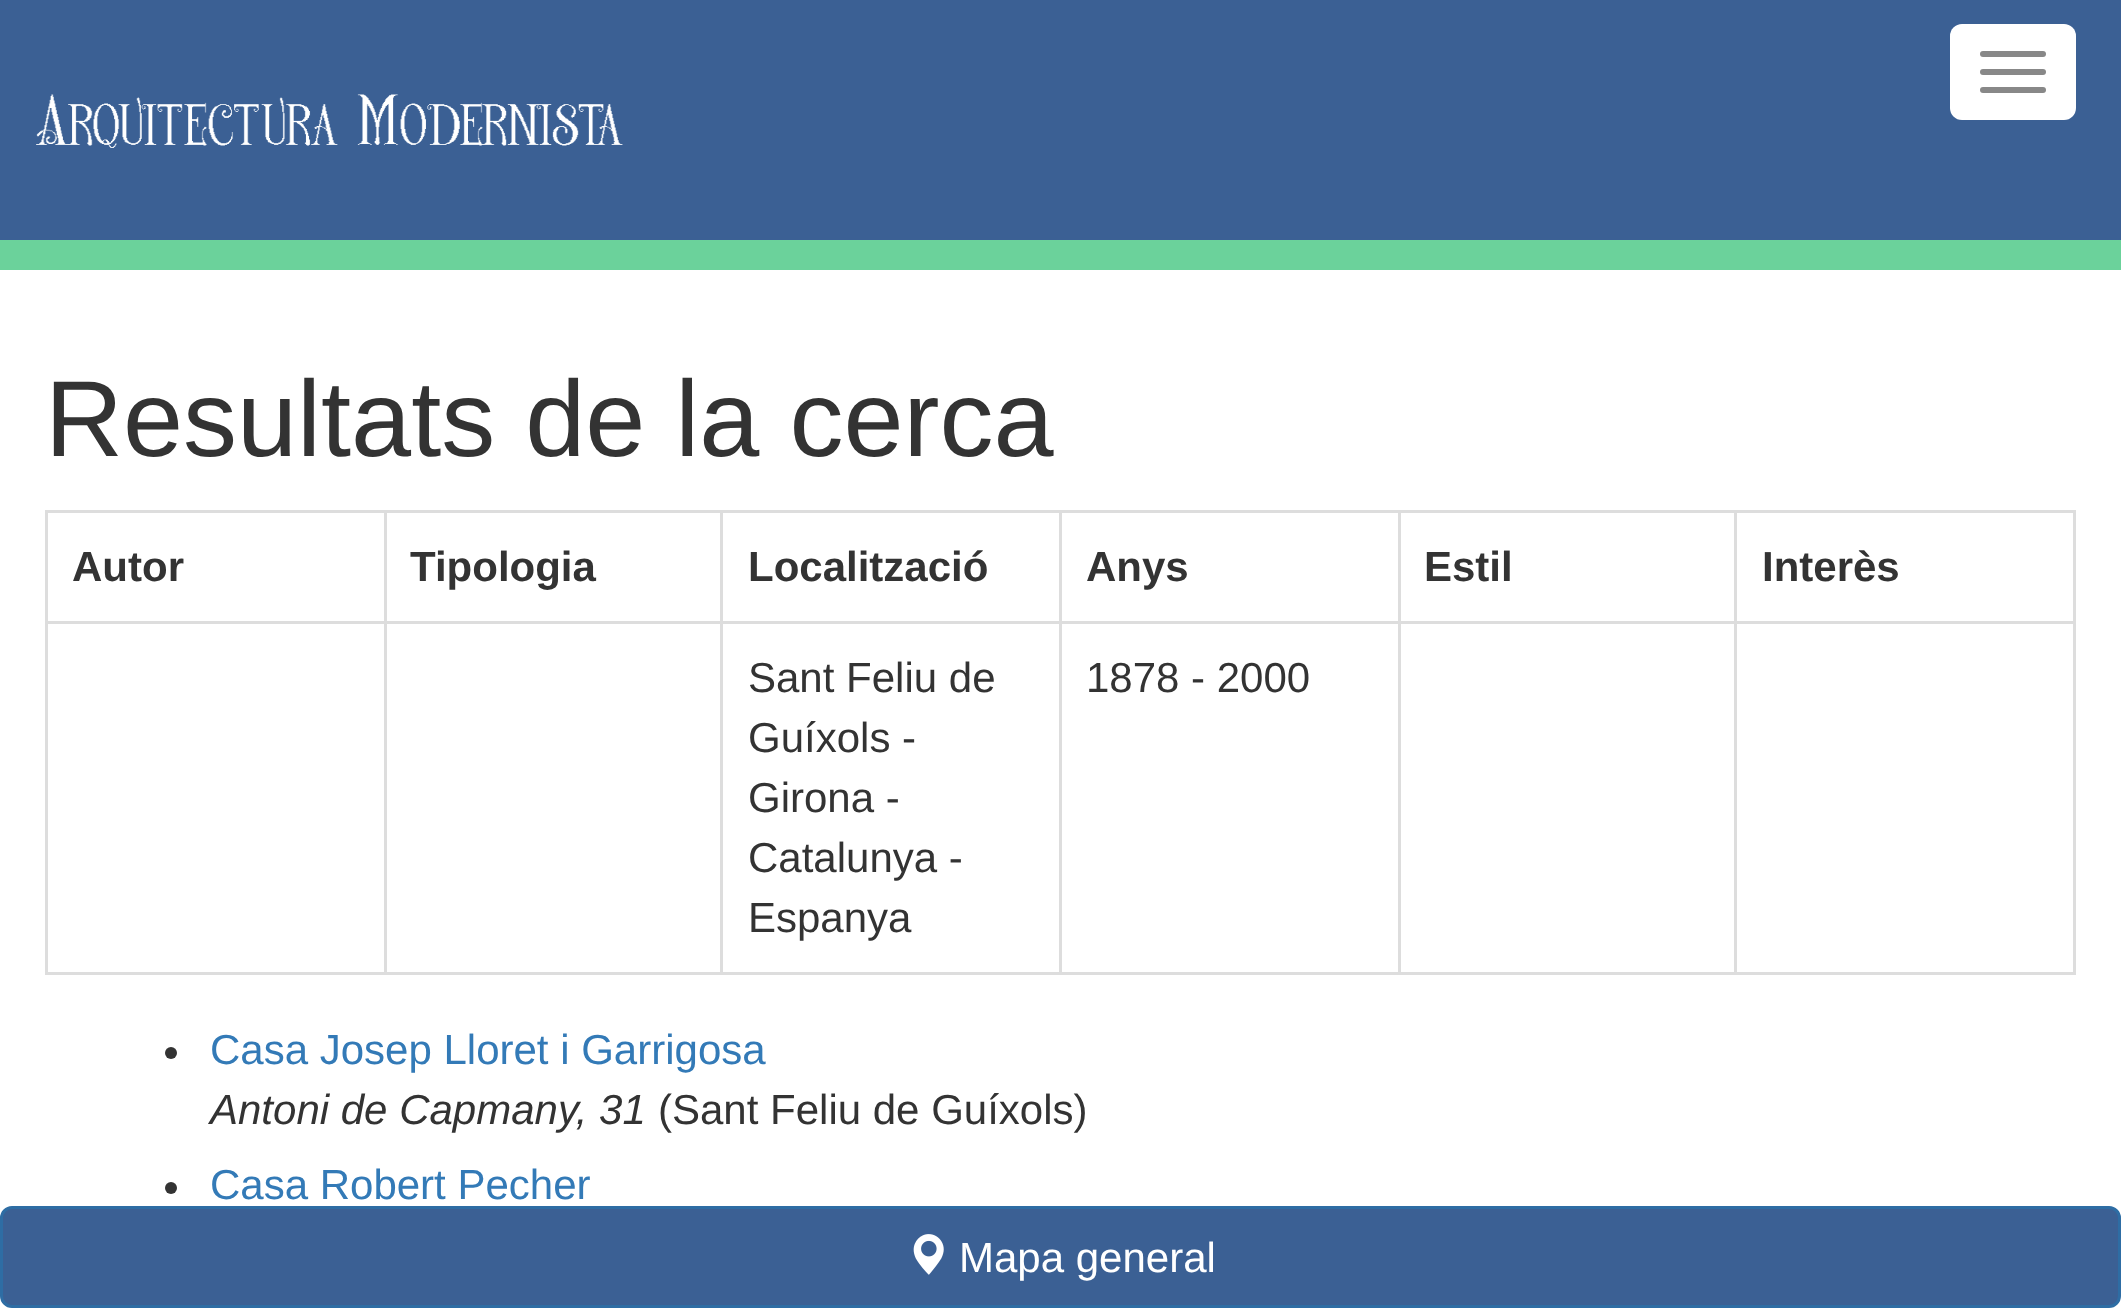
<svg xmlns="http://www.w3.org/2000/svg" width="2121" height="1308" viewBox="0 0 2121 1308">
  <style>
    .t1 { font: 108px Liberation Sans; fill: #333; }
    .t2 { font: bold 42px Liberation Sans; fill: #333; }
    .t3 { font: 42px Liberation Sans; fill: #333; }
    .t4 { font: 42px Liberation Sans; fill: #337ab7; }
    .t5 { font: italic 42px Liberation Sans; fill: #333; }
    .t6 { font: 42px Liberation Sans; fill: #fff; }
  </style>
  <rect width="100%" height="100%" fill="#fff"/>
  <rect x="0" y="0" width="2121" height="240" fill="#3b6094"/>
  <rect x="0" y="240" width="2121" height="30" fill="#6bd29b"/>
  <image x="36" y="94" width="587" height="54" href="images/1.png"/>
  <rect x="1950" y="24" width="126" height="96" rx="12" fill="#fff"/>
  <rect x="1980" y="51" width="66" height="6" rx="3" fill="#888"/>
  <rect x="1980" y="69" width="66" height="6" rx="3" fill="#888"/>
  <rect x="1980" y="87" width="66" height="6" rx="3" fill="#888"/>
  <text x="45" y="456" class="t1">Resultats de la cerca</text>
  <rect x="45" y="510" width="2031" height="3" fill="#ddd"/>
  <rect x="2073" y="510" width="3" height="465" fill="#ddd"/>
  <rect x="45" y="972" width="2031" height="3" fill="#ddd"/>
  <rect x="45" y="510" width="3" height="465" fill="#ddd"/>
  <text x="72" y="581" class="t2">Autor</text>
  <rect x="1734" y="621" width="342" height="3" fill="#ddd"/>
  <rect x="1734" y="621" width="3" height="354" fill="#ddd"/>
  <rect x="1398" y="621" width="339" height="3" fill="#ddd"/>
  <rect x="1398" y="621" width="3" height="354" fill="#ddd"/>
  <rect x="1059" y="621" width="342" height="3" fill="#ddd"/>
  <rect x="1059" y="621" width="3" height="354" fill="#ddd"/>
  <rect x="720" y="621" width="342" height="3" fill="#ddd"/>
  <rect x="720" y="621" width="3" height="354" fill="#ddd"/>
  <rect x="384" y="621" width="339" height="3" fill="#ddd"/>
  <rect x="384" y="621" width="3" height="354" fill="#ddd"/>
  <rect x="45" y="621" width="342" height="3" fill="#ddd"/>
  <rect x="384" y="510" width="3" height="114" fill="#ddd"/>
  <text x="410" y="581" class="t2">Tipologia</text>
  <rect x="720" y="510" width="3" height="114" fill="#ddd"/>
  <text x="748" y="581" class="t2">Localització</text>
  <rect x="1059" y="510" width="3" height="114" fill="#ddd"/>
  <text x="1086" y="581" class="t2">Anys</text>
  <rect x="1398" y="510" width="3" height="114" fill="#ddd"/>
  <text x="1424" y="581" class="t2">Estil</text>
  <rect x="1734" y="510" width="3" height="114" fill="#ddd"/>
  <text x="1762" y="581" class="t2">Interès</text>
  <text x="748" y="692" class="t3">Sant Feliu de</text>
  <text x="748" y="752" class="t3">Guíxols -</text>
  <text x="748" y="812" class="t3">Girona -</text>
  <text x="748" y="872" class="t3">Catalunya -</text>
  <text x="748" y="932" class="t3">Espanya</text>
  <text x="1086" y="692" class="t3">1878 - 2000</text>
  <circle cx="171" cy="1053" r="6" fill="#333"/>
  <text x="210" y="1064" class="t4">Casa Josep Lloret i Garrigosa</text>
  <text x="210" y="1124" class="t5">Antoni de Capmany, 31</text>
  <text x="658" y="1124" class="t3">(Sant Feliu de Guíxols)</text>
  <circle cx="171" cy="1188" r="6" fill="#333"/>
  <text x="210" y="1199" class="t4">Casa Robert Pecher</text>
  <rect x="1.5" y="1207.5" width="2118" height="99" rx="10.5" fill="#3b6094" stroke="#2e6da4" stroke-width="3"/>
  <image x="913" y="1234" width="31" height="41" href="images/2.png"/>
  <text x="959" y="1272" class="t6">Mapa general</text>
</svg>
